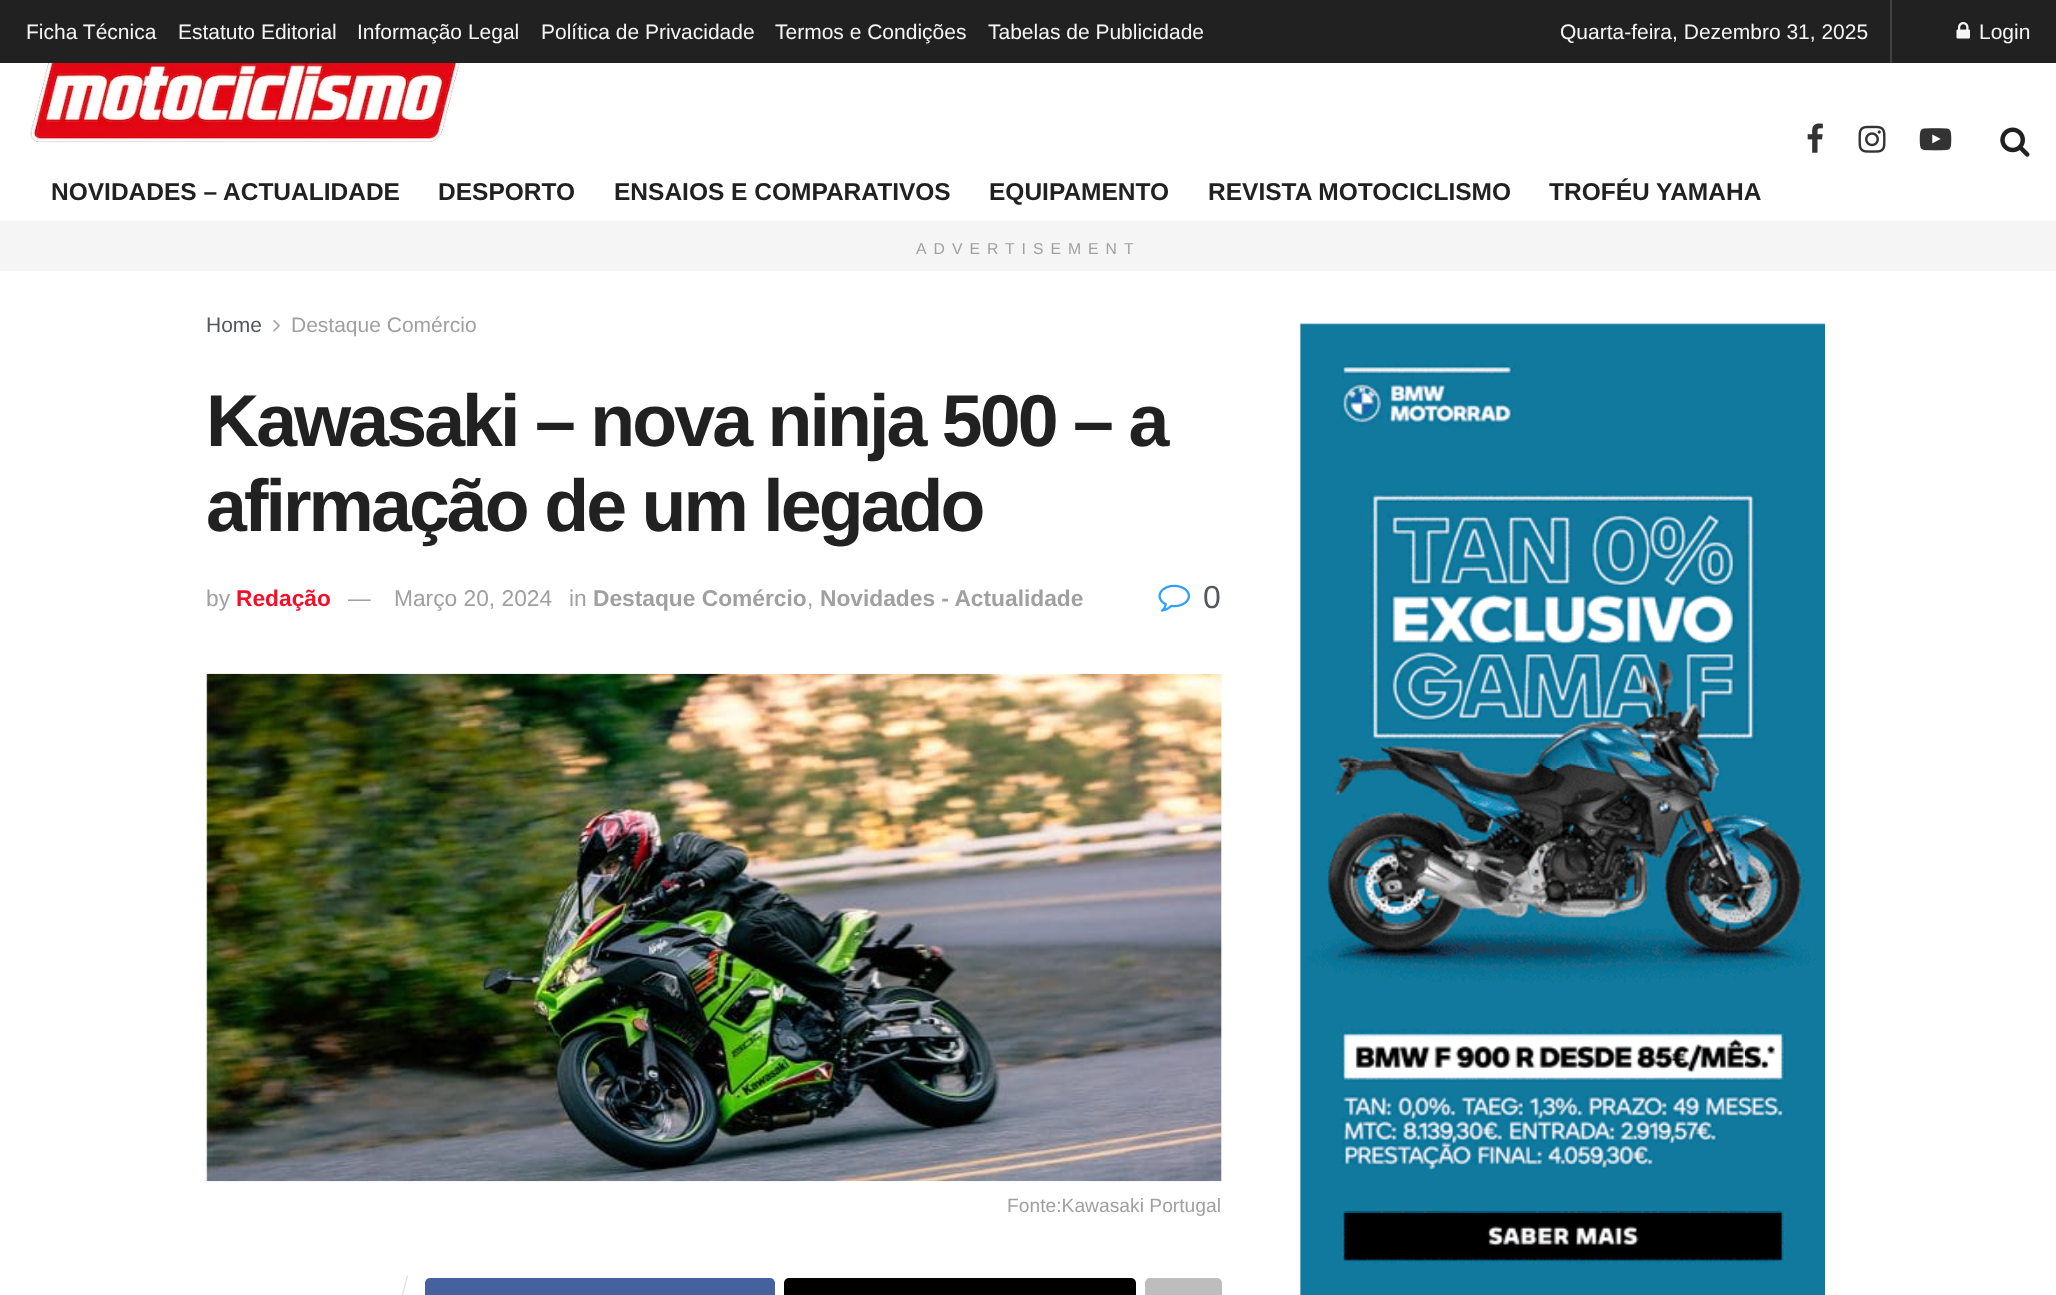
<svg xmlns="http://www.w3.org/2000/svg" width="2056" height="1295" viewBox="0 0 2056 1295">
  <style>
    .t1 { font: 21px Liberation Sans; fill: #f5f5f5; }
    .t2 { font: bold 24.5px Liberation Sans; fill: #212121; }
    .t3 { font: 15.75px Liberation Sans; letter-spacing: 7px; fill: #a0a0a0; }
    .t4 { font: 21px Liberation Sans; fill: #53585c; }
    .t5 { font: 21px Liberation Sans; fill: #a0a0a0; }
    .t6 { font: bold 73.5px Liberation Sans; letter-spacing: -2.95px; fill: #212121; }
    .t7 { font: 22.75px Liberation Sans; fill: #a0a0a0; }
    .t8 { font: bold 22.75px Liberation Sans; fill: #f70d28; }
    .t9 { font: bold 22.75px Liberation Sans; fill: #a0a0a0; }
    .t10 { font: 32px Liberation Sans; fill: #53585c; }
    .t11 { font: 19.25px Liberation Sans; fill: #a0a0a0; }
  </style>
  <rect width="100%" height="100%" fill="#fff"/>
  <rect x="0" y="0" width="2056" height="63" fill="#212121"/>
  <text x="26" y="39" class="t1">Ficha Técnica</text>
  <text x="178" y="39" class="t1">Estatuto Editorial</text>
  <text x="357" y="39" class="t1">Informação Legal</text>
  <text x="541" y="39" class="t1">Política de Privacidade</text>
  <text x="775" y="39" class="t1">Termos e Condições</text>
  <text x="988" y="39" class="t1">Tabelas de Publicidade</text>
  <rect x="1890" y="0" width="2" height="63" fill="#424242"/>
  <text x="1560" y="39" class="t1">Quarta-feira, Dezembro 31, 2025</text>
  <image x="1956" y="22" width="14" height="17" href="images/1.png"/>
  <text x="1979" y="39" class="t1">Login</text>
  <image x="1807" y="123" width="16" height="30" href="images/2.png"/>
  <image x="1858" y="125" width="28" height="28" href="images/3.png"/>
  <image x="1919" y="128" width="33" height="23" href="images/4.png"/>
  <image x="2000" y="127" width="30" height="30" href="images/5.png"/>
  <image x="30" y="63" width="430" height="79" href="images/6.png"/>
  <text x="51" y="200" class="t2">NOVIDADES – ACTUALIDADE</text>
  <text x="438" y="200" class="t2">DESPORTO</text>
  <text x="614" y="200" class="t2">ENSAIOS E COMPARATIVOS</text>
  <text x="989" y="200" class="t2">EQUIPAMENTO</text>
  <text x="1208" y="200" class="t2">REVISTA MOTOCICLISMO</text>
  <text x="1549" y="200" class="t2">TROFÉU YAMAHA</text>
  <rect x="0" y="221" width="2056" height="50" fill="#f5f5f5"/>
  <text x="916" y="254" class="t3">ADVERTISEMENT</text>
  <text x="206" y="332" class="t4">Home</text>
  <image x="273" y="320" width="7" height="12" href="images/7.png"/>
  <text x="291" y="332" class="t5">Destaque Comércio</text>
  <text x="206" y="446" class="t6">Kawasaki – nova ninja 500 – a</text>
  <text x="206" y="531" class="t6">afirmação de um legado</text>
  <text x="206" y="606" class="t7">by</text>
  <text x="236" y="606" class="t8">Redação</text>
  <text x="348" y="606" class="t7">—</text>
  <text x="394" y="606" class="t7">Março 20, 2024</text>
  <text x="569" y="606" class="t7">in</text>
  <text x="593" y="606" class="t9">Destaque Comércio</text>
  <text x="807" y="606" class="t7">,</text>
  <text x="820" y="606" class="t9">Novidades - Actualidade</text>
  <image x="1158" y="584" width="32" height="28" href="images/8.png"/>
  <text x="1203" y="608" class="t10">0</text>
  <rect x="1221" y="674" width="1" height="507" fill="#f7f7f7"/>
  <image x="206" y="673" width="1016" height="509" href="images/9.png"/>
  <text x="1007" y="1212" class="t11">Fonte:Kawasaki Portugal</text>
  <path d="M407 1275L408 1276L390 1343H389Z" fill="#e0e0e0"/>
  <rect x="425" y="1278" width="350" height="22" rx="5" fill="#45629f"/>
  <rect x="784" y="1278" width="352" height="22" rx="5" fill="#000"/>
  <rect x="1145" y="1278" width="77" height="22" rx="5" fill="#bdbdbd"/>
  <image x="1299" y="323" width="526" height="972" href="images/10.png"/>
</svg>
